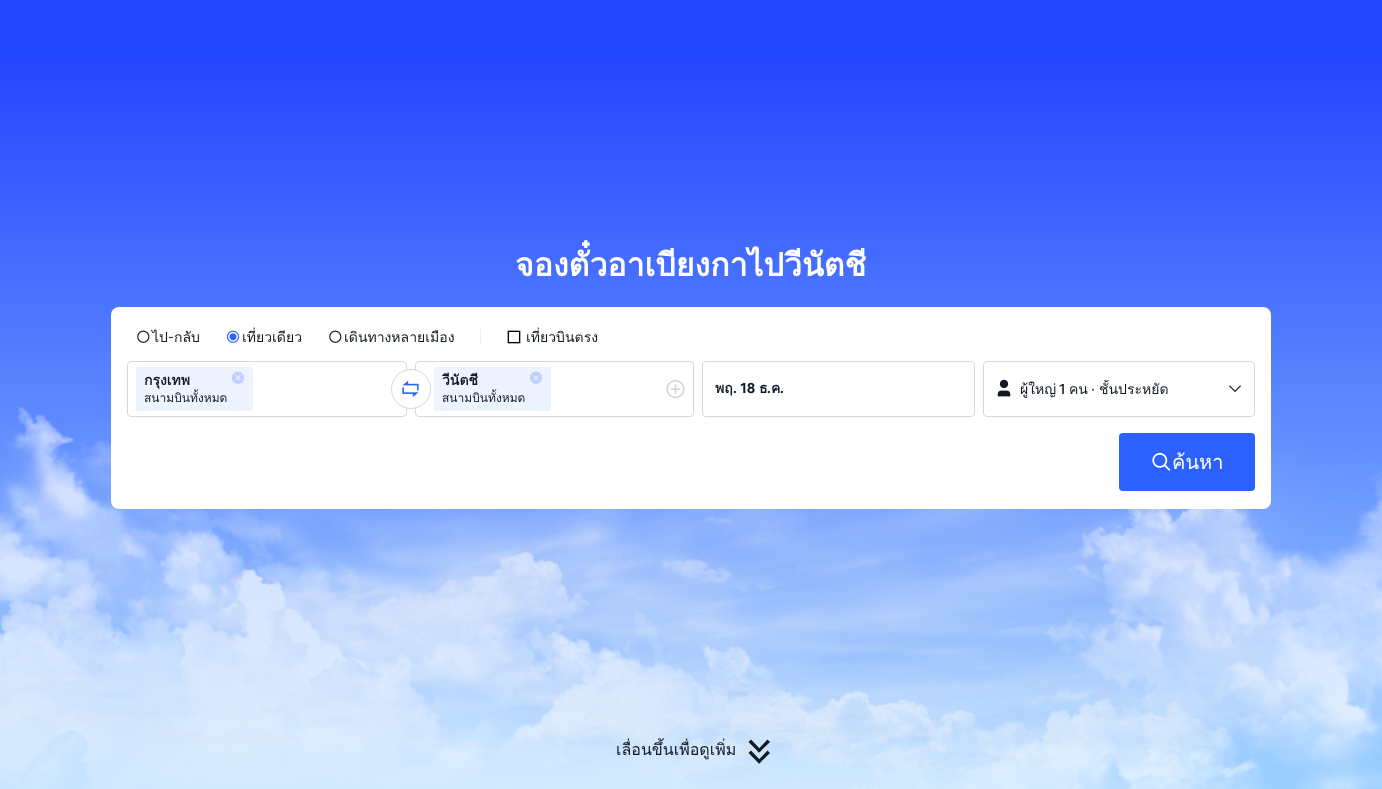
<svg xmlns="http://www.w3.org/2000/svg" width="1382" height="789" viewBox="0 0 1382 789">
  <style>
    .t1 { font: bold 32px Loma; fill: #fff; }
    .t2 { font: 14px Loma; fill: #121826; }
    .t3 { font: 14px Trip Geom; fill: #121826; }
    .t4 { font: bold 14px Loma; fill: #121826; }
    .t5 { font: 12px Loma; fill: #121826; }
    .t6 { font: bold 14px Trip Geom; fill: #121826; }
    .t7 { font: 500 14px Trip Geom; fill: #121826; }
    .t8 { font: 20px Loma; fill: #fff; }
    .t9 { font: 16px Loma; fill: #121826; }
  </style>
  <defs>
    <linearGradient id="g1" gradientUnits="userSpaceOnUse" x1="691" y1="0" x2="691" y2="789"><stop offset="0.07" stop-color="#2346ff"/><stop offset="1" stop-color="#99cfff"/></linearGradient>
    <clipPath id="clip1"><rect x="1020" y="380" width="198" height="18"/></clipPath>
  </defs>
  <rect width="100%" height="100%" fill="#fff"/>
  <rect x="0" y="0" width="1382" height="789" fill="url(#g1)"/>
  <image x="0" y="406" width="1382" height="383" href="images/1.png"/>
  <text x="515" y="276" class="t1">จองตั๋วอาเบียงกาไปวีนัตชี</text>
  <rect x="111" y="307" width="1160" height="202" rx="8" fill="#fff"/>
  <image x="137" y="330" width="13" height="13" href="images/2.png"/>
  <text x="152" y="342" class="t2">ไป</text>
  <text x="168" y="342" class="t3">-</text>
  <text x="174" y="342" class="t2">กลับ</text>
  <image x="226" y="330" width="14" height="13" href="images/3.png"/>
  <text x="242" y="342" class="t2">เที่ยวเดียว</text>
  <image x="329" y="330" width="13" height="13" href="images/2.png"/>
  <text x="344" y="342" class="t2">เดินทางหลายเมือง</text>
  <rect x="480" y="329" width="1" height="16" fill="#ebedf1"/>
  <image x="507" y="330" width="14" height="14" href="images/4.png"/>
  <text x="526" y="342" class="t2">เที่ยวบินตรง</text>
  <rect x="127.5" y="361.5" width="279" height="55" rx="3.5" fill="none" stroke="#d4d7de"/>
  <rect x="136" y="367" width="117" height="44" rx="2" fill="#eff3ff"/>
  <text x="144" y="385" class="t4">กรุงเทพ</text>
  <text x="144" y="402" class="t5">สนามบินทั้งหมด</text>
  <image x="231" y="371" width="13" height="13" href="images/5.png"/>
  <rect x="415.5" y="361.5" width="278" height="55" rx="3.5" fill="none" stroke="#d4d7de"/>
  <circle cx="411" cy="389" r="19.5" fill="#fff" stroke="#d4d7de"/>
  <image x="402" y="380" width="17" height="17" href="images/6.png"/>
  <rect x="434" y="367" width="117" height="44" rx="2" fill="#eff3ff"/>
  <text x="442" y="385" class="t4">วีนัตชี</text>
  <text x="442" y="402" class="t5">สนามบินทั้งหมด</text>
  <image x="529" y="371" width="13" height="13" href="images/5.png"/>
  <image x="666" y="380" width="19" height="19" href="images/7.png"/>
  <rect x="702.5" y="361.5" width="272" height="55" rx="3.5" fill="none" stroke="#d4d7de"/>
  <rect x="703" y="362" width="271" height="54" rx="4" fill="#fff"/>
  <text x="715" y="393" class="t4">พฤ</text>
  <text x="733" y="393" class="t6">. 18</text>
  <text x="759" y="393" class="t4">ธ</text>
  <text x="767" y="393" class="t6">.</text>
  <text x="771" y="393" class="t4">ค</text>
  <text x="780" y="393" class="t6">.</text>
  <rect x="983.5" y="361.5" width="271" height="55" rx="3.5" fill="none" stroke="#d4d7de"/>
  <image x="997" y="379" width="14" height="18" href="images/8.png"/>
  <g clip-path="url(#clip1)">
    <text x="1020" y="394" class="t2">ผู้ใหญ่</text>
  </g>
  <text x="1059" y="394" class="t7">1</text>
  <text x="1069" y="394" class="t2">คน</text>
  <text x="1091" y="394" class="t7">·</text>
  <g clip-path="url(#clip1)">
    <text x="1099" y="394" class="t2">ชั้นประหยัด</text>
  </g>
  <image x="1229" y="385" width="12" height="7" href="images/9.png"/>
  <rect x="1119" y="433" width="136" height="58" rx="4" fill="#2c61fe"/>
  <text x="1172" y="469" class="t8">ค้นหา</text>
  <image x="1152" y="452" width="19" height="19" href="images/10.png"/>
  <text x="616" y="755" class="t9">เลื่อนขึ้นเพื่อดูเพิ่ม</text>
  <path d="M767.5 739.5L770 742L759 752.5L757 750.5Z" fill="#121826"/>
  <path d="M751 739.5L761.5 750.5L759 752.5L748.5 742Z" fill="#121826"/>
  <path d="M767.5 750.5L770 753L759 763.5L757 761.5Z" fill="#121826"/>
  <path d="M751 750.5L761.5 761.5L759 763.5L748.5 753Z" fill="#121826"/>
</svg>
